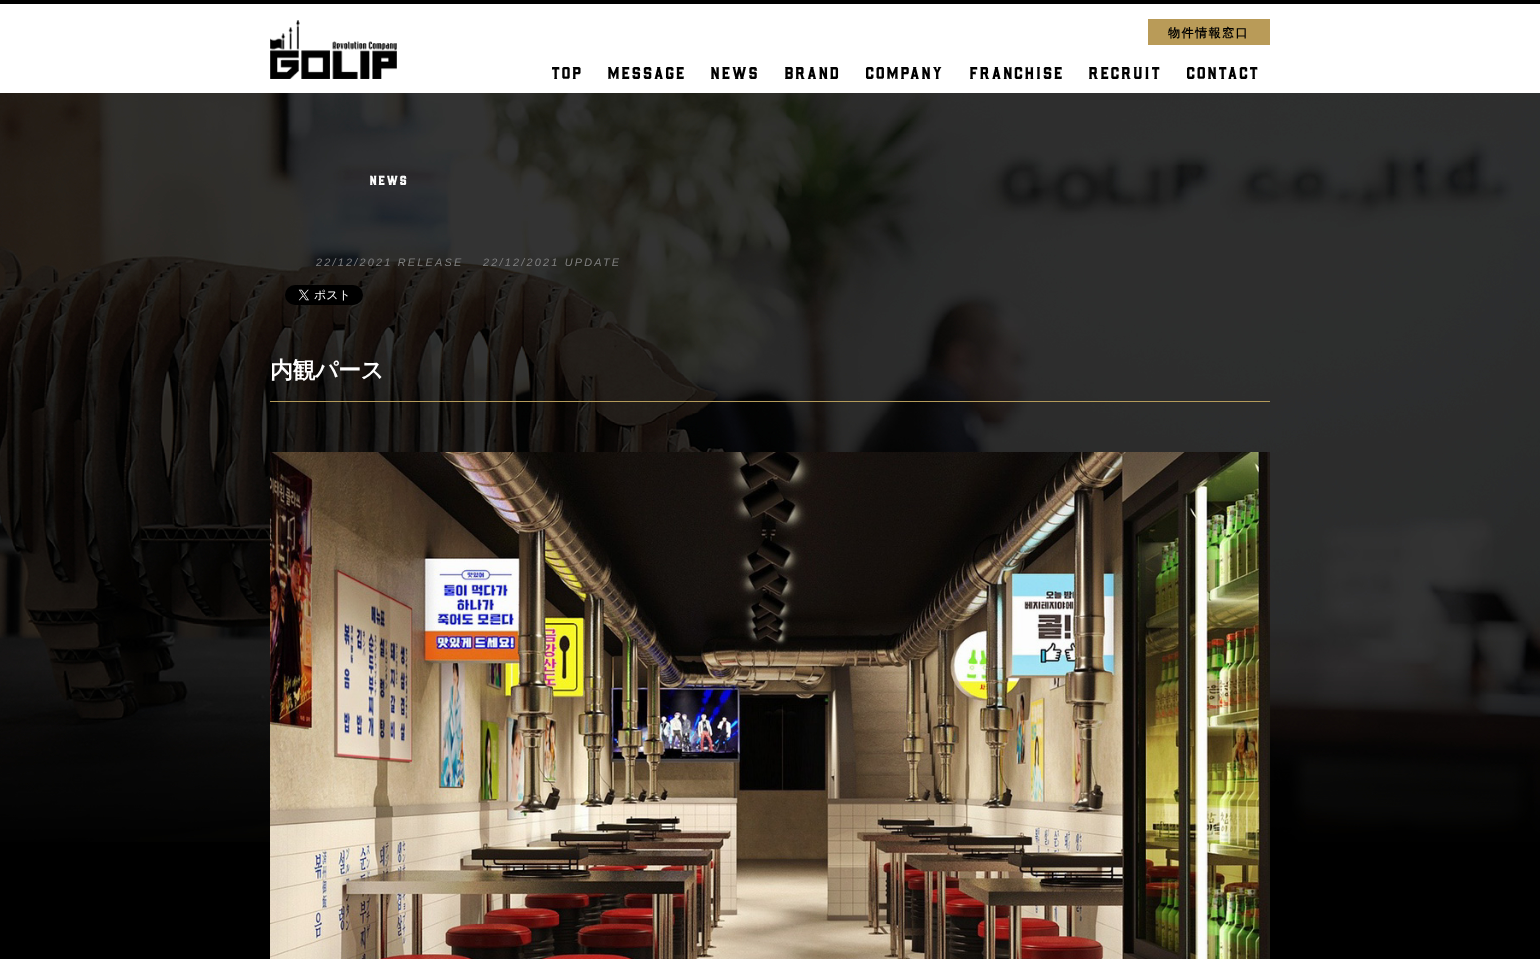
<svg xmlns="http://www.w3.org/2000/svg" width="1540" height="959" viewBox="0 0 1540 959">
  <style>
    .t1 { font: bold 12px WenQuanYi Zen Hei; letter-spacing: 1.5px; fill: #000; }
    .t2 { font: 17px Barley; letter-spacing: 1.75px; fill: #000; }
    .t3 { font: 13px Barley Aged; letter-spacing: 1.5px; fill: #fff; }
    .t4 { font: italic 10.9px Liberation Sans; letter-spacing: 2.2px; fill: #808080; }
    .t5 { font: bold 23px WenQuanYi Zen Hei; letter-spacing: -0.5px; fill: #fff; }
  </style>
  <rect width="100%" height="100%" fill="#000"/>
  <rect x="0" y="4" width="1540" height="89" fill="#fff"/>
  <image x="270" y="20" width="127" height="59" href="images/1.png"/>
  <rect x="1148" y="19" width="122" height="26" fill="#b99b58"/>
  <text x="1168" y="37" class="t1">物件情報窓口</text>
  <text x="552" y="79" class="t2">TOP</text>
  <text x="608" y="79" class="t2">MESSAGE</text>
  <text x="711" y="79" class="t2">NEWS</text>
  <text x="785" y="79" class="t2">BRAND</text>
  <text x="866" y="79" class="t2">COMPANY</text>
  <text x="970" y="79" class="t2">FRANCHISE</text>
  <text x="1089" y="79" class="t2">RECRUIT</text>
  <text x="1187" y="79" class="t2">CONTACT</text>
  <image x="0" y="93" width="1540" height="749" href="images/2.png"/>
  <text x="370" y="185" class="t3">NEWS</text>
  <text x="316" y="266" class="t4">22/12/2021 RELEASE</text>
  <text x="483" y="266" class="t4">22/12/2021 UPDATE</text>
  <image x="285" y="285" width="78" height="20" href="images/3.png"/>
  <rect x="270" y="401" width="1000" height="1" fill="#b49b5b"/>
  <text x="270" y="378" class="t5">内観パース</text>
  <image x="270" y="452" width="1000" height="507" href="images/4.png"/>
</svg>
